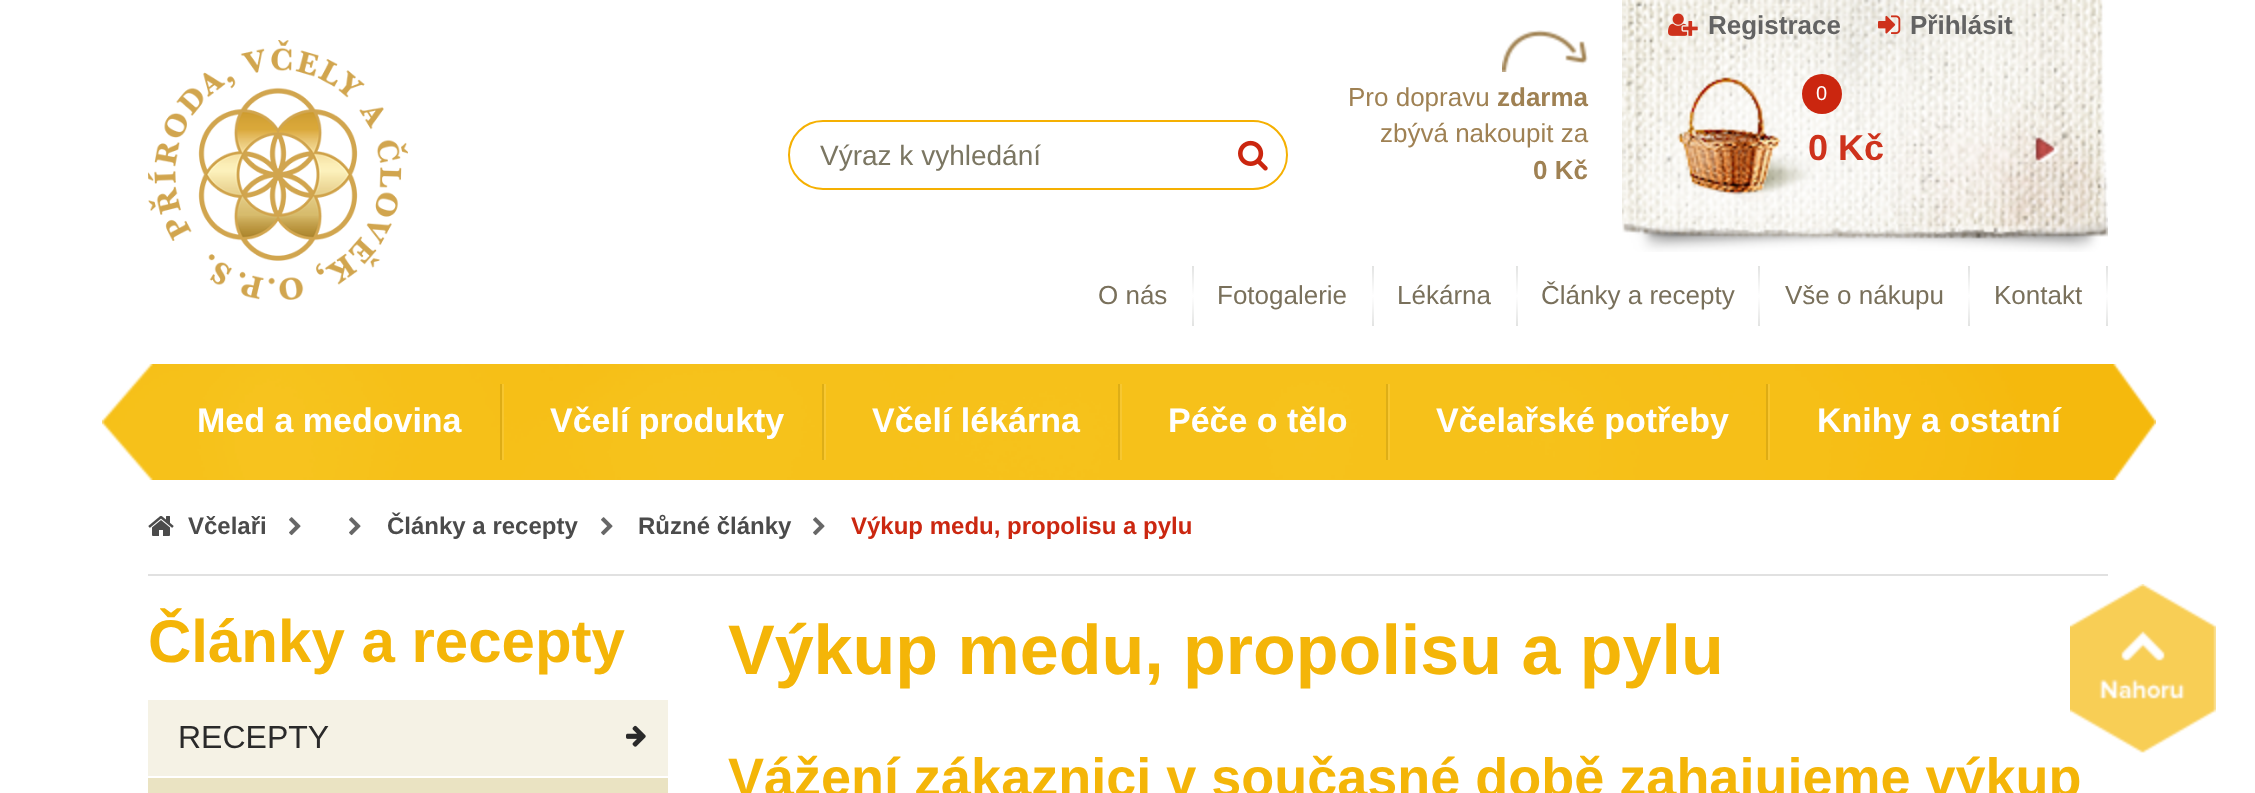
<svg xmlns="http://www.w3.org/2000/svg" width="2255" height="793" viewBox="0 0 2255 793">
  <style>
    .t1 { font: bold 26px Liberation Sans; fill: #636363; }
    .t2 { font: 28px Liberation Sans; fill: #7b7662; }
    .t3 { font: 26px Liberation Sans; fill: #9f8153; }
    .t4 { font: bold 26px Liberation Sans; fill: #9f8153; }
    .t5 { font: 20px Liberation Sans; fill: #fff; }
    .t6 { font: bold 36px Liberation Sans; fill: #ce321c; }
    .t7 { font: 26px Liberation Sans; fill: #79705b; }
    .t8 { font: bold 34px Liberation Sans; fill: #fff; }
    .t9 { font: bold 24px Liberation Sans; fill: #4b4b4b; }
    .t10 { font: bold 24px Liberation Sans; fill: #cb2710; }
    .t11 { font: bold 60px Liberation Sans; fill: #f4b508; }
    .t12 { font: 32px Liberation Sans; fill: #2a2a2a; }
    .t13 { font: bold 70px Liberation Sans; fill: #f4b508; }
    .t14 { font: bold 54px Liberation Sans; fill: #f4b508; }
  </style>
  <defs>
    <linearGradient id="g1" gradientUnits="userSpaceOnUse" x1="1193" y1="266" x2="1193" y2="326"><stop offset="0" stop-color="#e2e3e2"/><stop offset="0.5" stop-color="#fff"/><stop offset="1" stop-color="#e2e3e2"/></linearGradient>
    <linearGradient id="g2" gradientUnits="userSpaceOnUse" x1="1373" y1="266" x2="1373" y2="326"><stop offset="0" stop-color="#e2e3e2"/><stop offset="0.5" stop-color="#fff"/><stop offset="1" stop-color="#e2e3e2"/></linearGradient>
    <linearGradient id="g3" gradientUnits="userSpaceOnUse" x1="1517" y1="266" x2="1517" y2="326"><stop offset="0" stop-color="#e2e3e2"/><stop offset="0.5" stop-color="#fff"/><stop offset="1" stop-color="#e2e3e2"/></linearGradient>
    <linearGradient id="g4" gradientUnits="userSpaceOnUse" x1="1759" y1="266" x2="1759" y2="326"><stop offset="0" stop-color="#e2e3e2"/><stop offset="0.5" stop-color="#fff"/><stop offset="1" stop-color="#e2e3e2"/></linearGradient>
    <linearGradient id="g5" gradientUnits="userSpaceOnUse" x1="1969" y1="266" x2="1969" y2="326"><stop offset="0" stop-color="#e2e3e2"/><stop offset="0.5" stop-color="#fff"/><stop offset="1" stop-color="#e2e3e2"/></linearGradient>
    <linearGradient id="g6" gradientUnits="userSpaceOnUse" x1="2107" y1="266" x2="2107" y2="326"><stop offset="0" stop-color="#e2e3e2"/><stop offset="0.5" stop-color="#fff"/><stop offset="1" stop-color="#e2e3e2"/></linearGradient>
  </defs>
  <rect width="100%" height="100%" fill="#fff"/>
  <image x="1622" y="0" width="486" height="252" href="images/5.png"/>
  <image x="1668" y="13" width="30" height="23" href="images/1.png"/>
  <text x="1708" y="34" class="t1">Registrace</text>
  <image x="1878" y="15" width="23" height="19" href="images/2.png"/>
  <text x="1910" y="34" class="t1">Přihlásit</text>
  <image x="148" y="40" width="260" height="260" href="images/3.png"/>
  <rect x="789" y="121" width="498" height="68" rx="34" fill="none" stroke="#f5b002" stroke-width="2"/>
  <text x="820" y="165" class="t2">Výraz k vyhledání</text>
  <image x="1238" y="140" width="30" height="31" href="images/4.png"/>
  <image x="1502" y="30" width="86" height="42" href="images/6.png"/>
  <text x="1348" y="106" class="t3">Pro dopravu</text>
  <text x="1497" y="106" class="t4">zdarma</text>
  <text x="1380" y="142" class="t3">zbývá nakoupit za</text>
  <text x="1533" y="179" class="t4">0 Kč</text>
  <circle cx="1822" cy="94" r="20" fill="#cb260f"/>
  <text x="1816" y="100" class="t5">0</text>
  <text x="1808" y="160" class="t6">0 Kč</text>
  <text x="1098" y="304" class="t7">O nás</text>
  <rect x="1192" y="266" width="2" height="60" fill="url(#g1)"/>
  <text x="1217" y="304" class="t7">Fotogalerie</text>
  <rect x="1372" y="266" width="2" height="60" fill="url(#g2)"/>
  <text x="1397" y="304" class="t7">Lékárna</text>
  <rect x="1516" y="266" width="2" height="60" fill="url(#g3)"/>
  <text x="1541" y="304" class="t7">Články a recepty</text>
  <rect x="1758" y="266" width="2" height="60" fill="url(#g4)"/>
  <text x="1785" y="304" class="t7">Vše o nákupu</text>
  <rect x="1968" y="266" width="2" height="60" fill="url(#g5)"/>
  <text x="1994" y="304" class="t7">Kontakt</text>
  <rect x="2106" y="266" width="2" height="60" fill="url(#g6)"/>
  <image x="102" y="364" width="2054" height="116" href="images/7.png"/>
  <text x="197" y="432" class="t8">Med a medovina</text>
  <rect x="502" y="384" width="2" height="76" fill="#f7c62f"/>
  <rect x="500" y="384" width="2" height="76" fill="#ddac15"/>
  <text x="550" y="432" class="t8">Včelí produkty</text>
  <rect x="824" y="384" width="2" height="76" fill="#f7c731"/>
  <rect x="822" y="384" width="2" height="76" fill="#ddae17"/>
  <text x="872" y="432" class="t8">Včelí lékárna</text>
  <rect x="1120" y="384" width="2" height="76" fill="#f7c731"/>
  <rect x="1118" y="384" width="2" height="76" fill="#ddae17"/>
  <text x="1168" y="432" class="t8">Péče o tělo</text>
  <rect x="1388" y="384" width="2" height="76" fill="#f7c731"/>
  <rect x="1386" y="384" width="2" height="76" fill="#ddae17"/>
  <text x="1436" y="432" class="t8">Včelařské potřeby</text>
  <rect x="1768" y="384" width="2" height="76" fill="#f7c52e"/>
  <rect x="1766" y="384" width="2" height="76" fill="#ddac15"/>
  <text x="1817" y="432" class="t8">Knihy a ostatní</text>
  <rect x="148" y="574" width="1960" height="2" fill="#e1e1e1"/>
  <image x="148" y="516" width="26" height="20" href="images/8.png"/>
  <text x="188" y="534" class="t9">Včelaři</text>
  <image x="289" y="517" width="12" height="19" href="images/9.png"/>
  <image x="349" y="517" width="12" height="19" href="images/9.png"/>
  <text x="387" y="534" class="t9">Články a recepty</text>
  <image x="601" y="517" width="12" height="19" href="images/9.png"/>
  <text x="638" y="534" class="t9">Různé články</text>
  <image x="813" y="517" width="12" height="19" href="images/9.png"/>
  <text x="851" y="534" class="t10">Výkup medu, propolisu a pylu</text>
  <text x="148" y="662" class="t11">Články a recepty</text>
  <rect x="148" y="700" width="520" height="76" fill="#f5f2e5"/>
  <text x="178" y="748" class="t12">RECEPTY</text>
  <image x="626" y="725" width="20" height="22" href="images/10.png"/>
  <rect x="148" y="778" width="520" height="15" fill="#eae3c2"/>
  <text x="728" y="674" class="t13">Výkup medu, propolisu a pylu</text>
  <text x="728" y="796" class="t14">Vážení zákaznici v současné době zahajujeme výkup</text>
  <image x="2070" y="584" width="146" height="169" href="images/11.png"/>
</svg>
